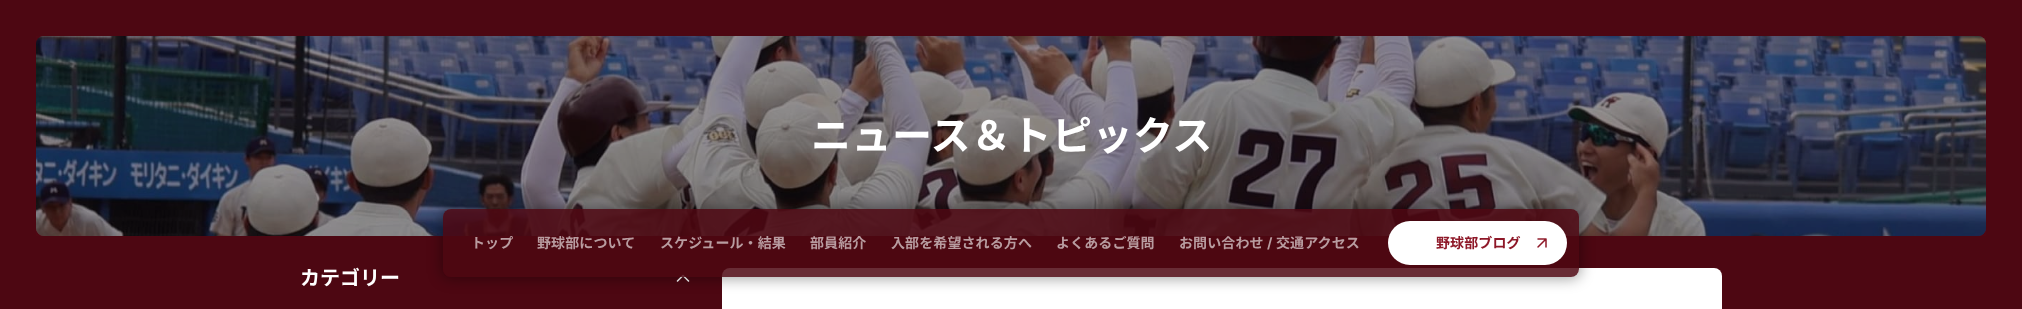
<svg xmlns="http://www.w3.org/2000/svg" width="2022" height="309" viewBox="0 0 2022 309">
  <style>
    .t1 { font: bold 40px Noto Sans JP; letter-spacing: 0.5px; fill: #fff; }
    .t2 { font: bold 20px Noto Sans JP; fill: #fff; }
    .t3 { font: bold 14px Noto Sans JP; letter-spacing: 0.1px; fill: #b89ca0; }
    .t4 { font: bold 14px Inter; letter-spacing: 0.1px; fill: #b89ca0; }
    .t5 { font: bold 14px Noto Sans JP; letter-spacing: 0.1px; fill: #8e1828; }
  </style>
  <defs>
    <clipPath id="clip1"><path d="M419 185H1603V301H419ZM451 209H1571C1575.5 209 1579 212.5 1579 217V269C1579 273.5 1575.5 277 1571 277H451C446.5 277 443 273.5 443 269V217C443 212.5 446.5 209 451 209Z" clip-rule="evenodd"/></clipPath>
  </defs>
  <rect width="100%" height="100%" fill="#4d0712"/>
  <image x="36" y="36" width="1950" height="200" href="images/1.png"/>
  <rect x="36" y="36" width="1950" height="200" fill="#8e18280d"/>
  <rect x="36" y="36" width="1950" height="200" rx="8" fill="#00000066"/>
  <text x="811" y="150" class="t1">ニュース＆トピックス</text>
  <text x="300" y="285" class="t2">カテゴリー</text>
  <path d="M688.5 281L683 275.5L677.5 281" fill="none" stroke="#fff" stroke-width="1.6" stroke-linecap="round" stroke-linejoin="round"/>
  <rect x="722" y="268" width="1000" height="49" rx="8" fill="#fff"/>
  <g clip-path="url(#clip1)">
    <rect x="441" y="207" width="1140" height="72" rx="10" fill="#00000059" filter="blur(7px)"/>
  </g>
  <rect x="443" y="209" width="1136" height="68" rx="8" fill="#4d0712d9"/>
  <text x="471" y="248" class="t3">トップ</text>
  <text x="537" y="248" class="t3">野球部について</text>
  <text x="660" y="248" class="t3">スケジュール・結果</text>
  <text x="810" y="248" class="t3">部員紹介</text>
  <text x="891" y="248" class="t3">入部を希望される方へ</text>
  <text x="1056" y="248" class="t3">よくあるご質問</text>
  <text x="1179" y="248" class="t3">お問い合わせ</text>
  <text x="1267" y="248" class="t4">/</text>
  <text x="1276" y="248" class="t3">交通アクセス</text>
  <rect x="1388" y="221" width="179" height="44" rx="22" fill="#fff"/>
  <text x="1436" y="248" class="t5">野球部ブログ</text>
  <image x="1537" y="238" width="10" height="10" href="images/2.png"/>
</svg>
